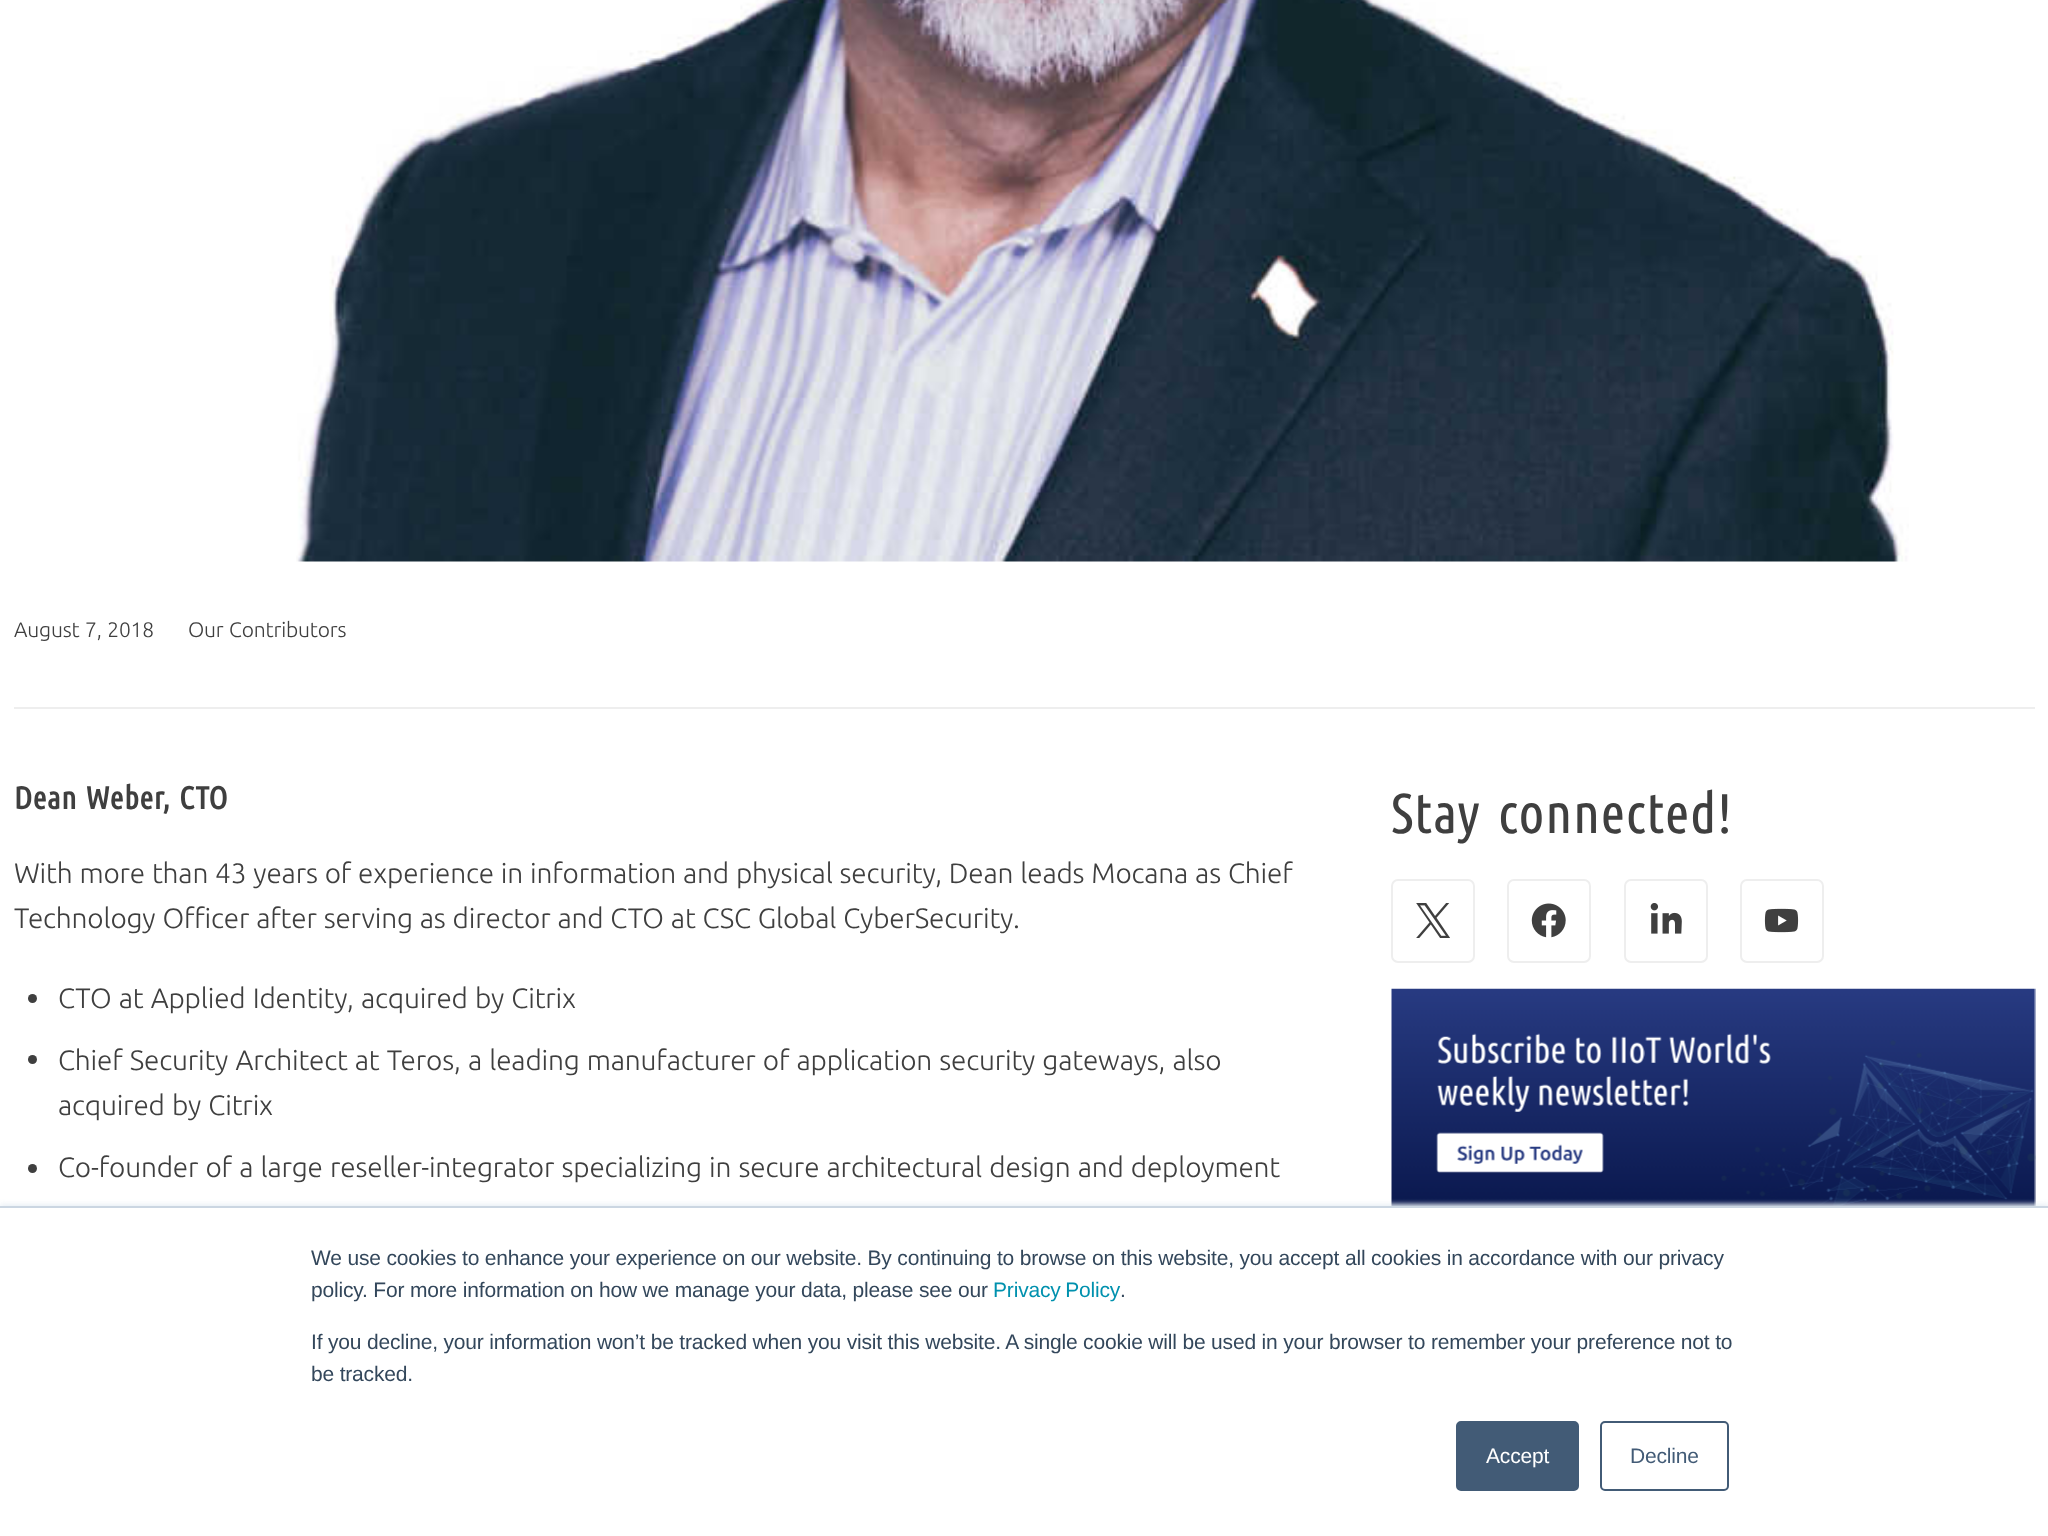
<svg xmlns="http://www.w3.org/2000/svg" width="2048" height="1536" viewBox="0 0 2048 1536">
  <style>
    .t1 { font: 300 21px Ubuntu; letter-spacing: -0.18px; fill: #3f3f3f; }
    .t2 { font: bold 31.5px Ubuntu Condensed; letter-spacing: 0.6px; fill: #3f3f3f; }
    .t3 { font: 300 28px Ubuntu; letter-spacing: -0.18px; fill: #3f3f3f; }
    .t4 { font: 56px Ubuntu Condensed; letter-spacing: 0.8px; fill: #3f3f3f; }
    .t5 { font: 21px Liberation Sans; letter-spacing: -0.18px; fill: #33475b; }
    .t6 { font: 21px Liberation Sans; letter-spacing: -0.18px; fill: #0091ae; }
    .t7 { font: 21px Liberation Sans; letter-spacing: -0.18px; fill: #fff; }
    .t8 { font: 21px Liberation Sans; letter-spacing: -0.18px; fill: #425b76; }
  </style>
  <rect width="100%" height="100%" fill="#fff"/>
  <image x="296" y="0" width="1613" height="562" href="images/1.png"/>
  <rect x="14" y="707" width="2021" height="2" fill="#eee"/>
  <text x="14" y="637" word-spacing="1" class="t1">August 7, 2018</text>
  <text x="188" y="637" word-spacing="1" class="t1">Our Contributors</text>
  <text x="14" y="809" word-spacing="2" class="t2">Dean Weber, CTO</text>
  <text x="14" y="883" word-spacing="0.75" class="t3">With more than 43 years of experience in information and physical security, Dean leads Mocana as Chief</text>
  <text x="14" y="928" word-spacing="0.75" class="t3">Technology Officer after serving as director and CTO at CSC Global CyberSecurity.</text>
  <circle cx="32.5" cy="998.5" r="4.5" fill="#3f3f3f"/>
  <text x="58" y="1008" word-spacing="1" class="t3">CTO at Applied Identity, acquired by Citrix</text>
  <circle cx="32.5" cy="1059.5" r="4.5" fill="#3f3f3f"/>
  <text x="58" y="1070" word-spacing="1" class="t3">Chief Security Architect at Teros, a leading manufacturer of application security gateways, also</text>
  <text x="58" y="1115" word-spacing="1" class="t3">acquired by Citrix</text>
  <circle cx="32.5" cy="1168.5" r="4.5" fill="#3f3f3f"/>
  <text x="58" y="1177" word-spacing="1" class="t3">Co-founder of a large reseller-integrator specializing in secure architectural design and deployment</text>
  <text x="1391" y="833" word-spacing="6" class="t4">Stay connected!</text>
  <rect x="1392" y="880" width="82" height="82" rx="6" fill="none" stroke="#eee" stroke-width="2"/>
  <image x="1416" y="903" width="34" height="35" href="images/2.png"/>
  <rect x="1508" y="880" width="82" height="82" rx="6" fill="none" stroke="#eee" stroke-width="2"/>
  <image x="1531" y="903" width="35" height="35" href="images/3.png"/>
  <rect x="1625" y="880" width="82" height="82" rx="6" fill="none" stroke="#eee" stroke-width="2"/>
  <image x="1650" y="903" width="32" height="31" href="images/4.png"/>
  <rect x="1741" y="880" width="82" height="82" rx="6" fill="none" stroke="#eee" stroke-width="2"/>
  <image x="1764" y="908" width="35" height="25" href="images/5.png"/>
  <image x="1391" y="988" width="645" height="218" href="images/6.png"/>
  <rect x="0" y="1204" width="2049" height="331" fill="#eaf0f6" filter="blur(2.5px)"/>
  <rect x="0" y="1208" width="2048" height="328" fill="#fff"/>
  <rect x="0" y="1206" width="2048" height="2" fill="#cbd6e2"/>
  <text x="311" y="1265" class="t5">We use cookies to enhance your experience on our website. By continuing to browse on this website, you accept all cookies in accordance with our privacy</text>
  <text x="311" y="1297" class="t5">policy. For more information on how we manage your data, please see our</text>
  <text x="993" y="1297" word-spacing="-1" class="t6">Privacy Policy</text>
  <text x="1120" y="1297" class="t5">.</text>
  <text x="311" y="1349" class="t5">If you decline, your information won’t be tracked when you visit this website. A single cookie will be used in your browser to remember your preference not to</text>
  <text x="311" y="1381" class="t5">be tracked.</text>
  <rect x="1457" y="1422" width="121" height="68" rx="4" fill="#425b76" stroke="#425b76" stroke-width="2"/>
  <text x="1486" y="1463" class="t7">Accept</text>
  <rect x="1601" y="1422" width="127" height="68" rx="4" fill="none" stroke="#425b76" stroke-width="2"/>
  <text x="1630" y="1463" class="t8">Decline</text>
</svg>
